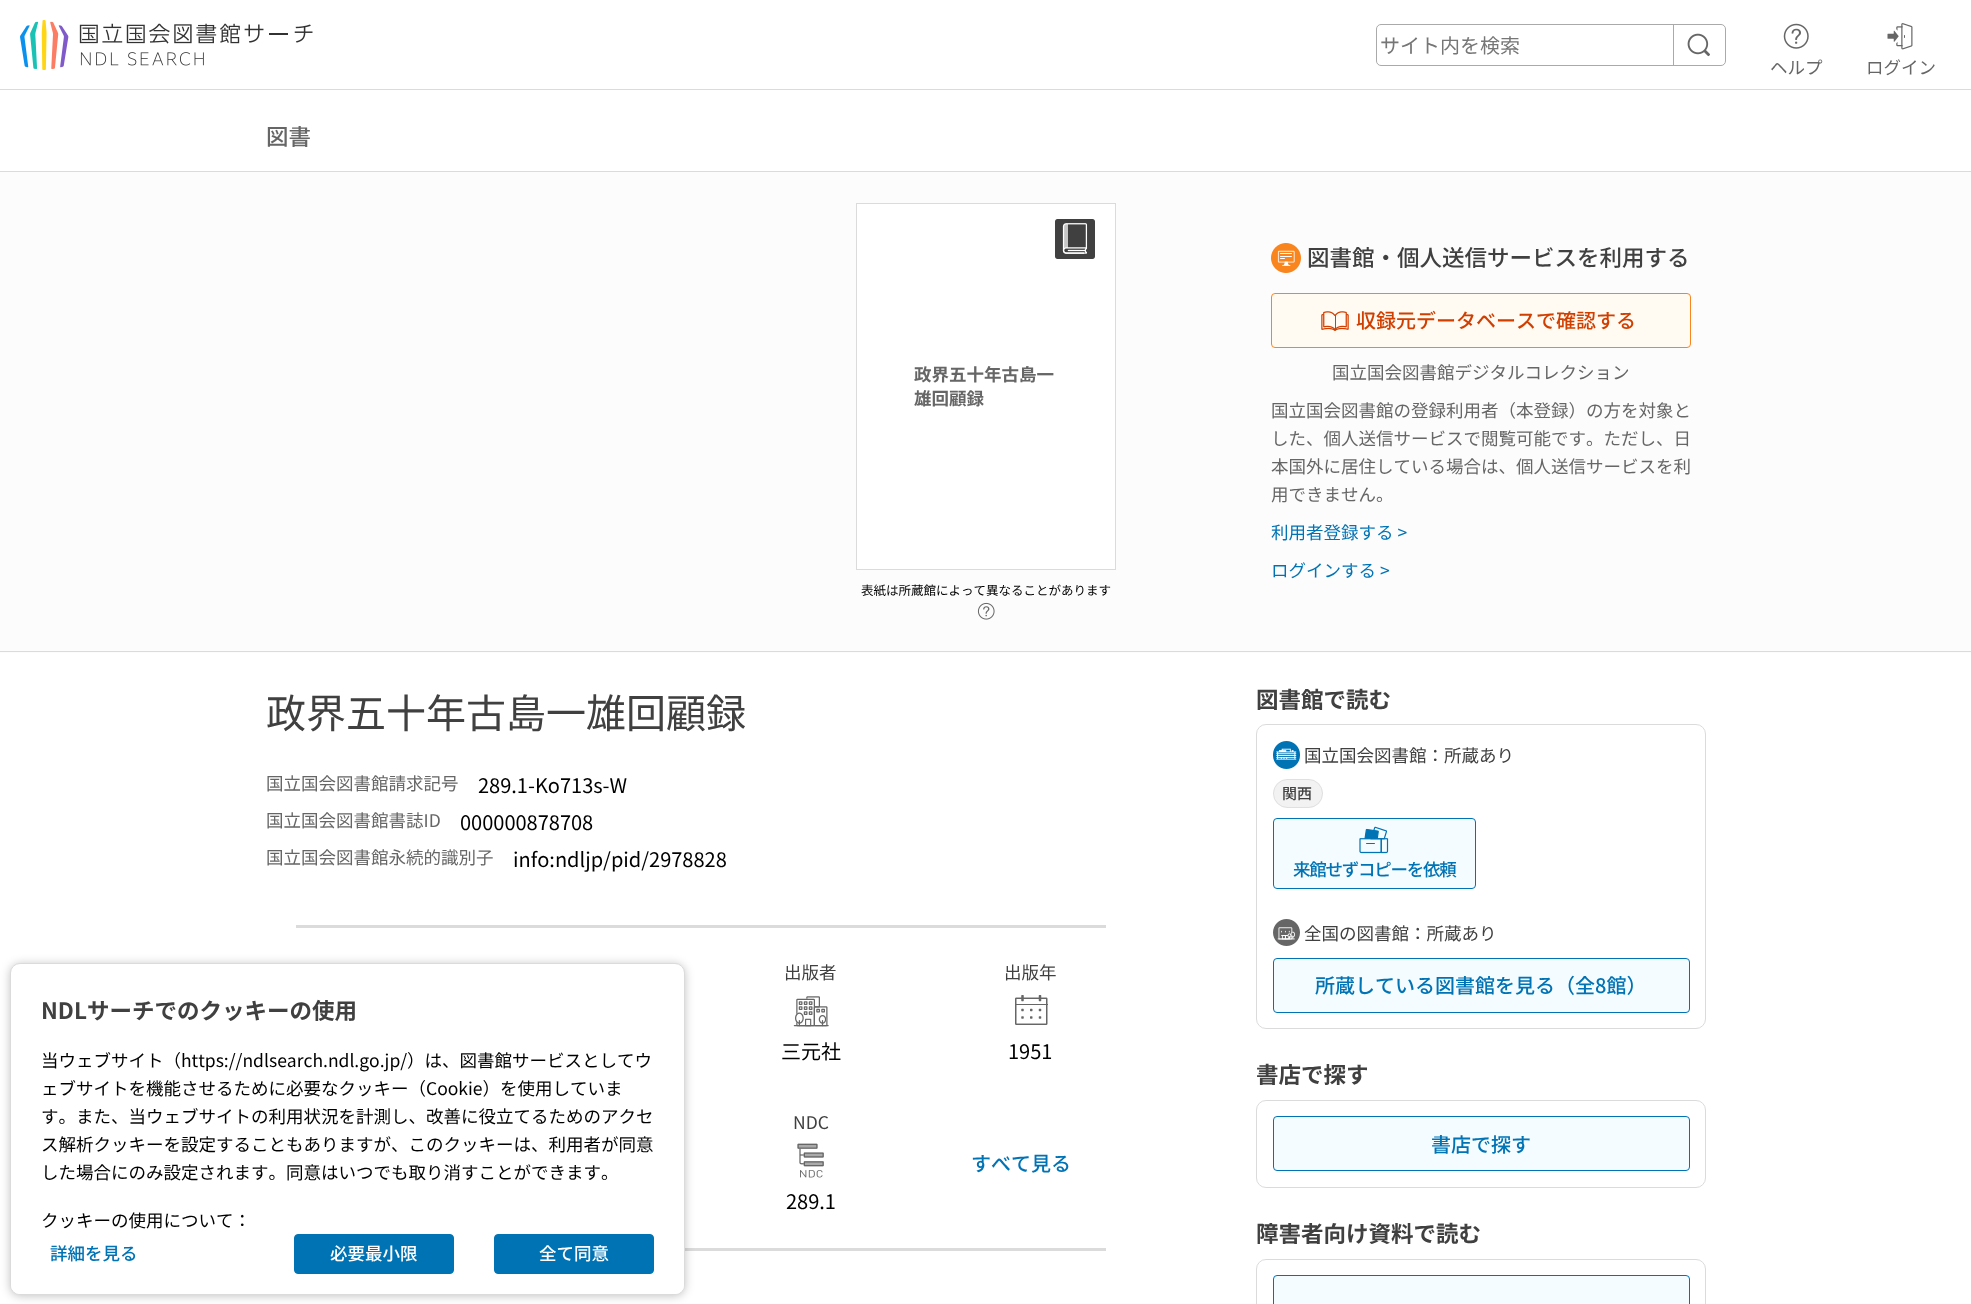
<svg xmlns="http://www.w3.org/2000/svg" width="1971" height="1304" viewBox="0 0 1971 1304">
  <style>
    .t1 { font: 20px Noto Sans JP; fill: #767676; }
    .t2 { font: 17.5px Noto Sans JP; fill: #666; }
    .t3 { font: 500 22.5px Noto Sans JP; fill: #666; }
    .t4 { font: bold 17.5px Noto Sans JP; fill: #666; }
    .t5 { font: 12.5px Noto Sans JP; fill: #000; }
    .t6 { font: 500 22.5px Noto Sans JP; fill: #404040; }
    .t7 { font: 500 20px Noto Sans JP; fill: #d13f00; }
    .t8 { font: 17.5px Noto Sans JP; fill: #0073b5; }
    .t9 { font: 40px Noto Sans JP; fill: #404040; }
    .t10 { font: 20px Noto Sans JP; fill: #000; }
    .t11 { font: 17.5px Noto Sans JP; fill: #404040; }
    .t12 { font: 500 20px Noto Sans JP; fill: #0073b5; }
    .t13 { font: bold 22.5px Noto Sans JP; fill: #404040; }
    .t14 { font: 500 15px Noto Sans JP; fill: #404040; }
    .t15 { font: 500 17.5px Noto Sans JP; letter-spacing: -1.25px; fill: #0073b5; }
    .t16 { font: 17.5px Noto Sans JP; fill: #000; }
    .t17 { font: 500 17.5px Noto Sans JP; fill: #0073b5; }
    .t18 { font: 500 17.5px Noto Sans JP; fill: #fff; }
  </style>
  <rect width="100%" height="100%" fill="#fff"/>
  <rect x="0" y="89" width="1971" height="1" fill="#dbdbdb"/>
  <image x="20" y="20" width="293" height="50" href="images/1.png"/>
  <rect x="1376.5" y="24.5" width="349" height="41" rx="4.5" fill="none" stroke="#aaa"/>
  <text x="1380" y="53" class="t1">サイト内を検索</text>
  <rect x="1673" y="24" width="1" height="42" fill="#aaa"/>
  <image x="1687" y="33" width="23" height="24" href="images/2.png"/>
  <image x="1783" y="23" width="26" height="26" href="images/3.png"/>
  <text x="1770" y="74" class="t2">ヘルプ</text>
  <image x="1887" y="23" width="26" height="27" href="images/4.png"/>
  <text x="1866" y="74" class="t2">ログイン</text>
  <text x="266" y="145" class="t3">図書</text>
  <rect x="0" y="172" width="1971" height="481" fill="#fcfcfc"/>
  <rect x="0" y="171" width="1971" height="1" fill="#dbdbdb"/>
  <rect x="0" y="651" width="1971" height="1" fill="#dbdbdb"/>
  <rect x="856.5" y="203.5" width="259" height="366" fill="#fff" stroke="#dbdbdb"/>
  <image x="1055" y="219" width="40" height="40" href="images/5.png"/>
  <text x="914" y="381" class="t4">政界五十年古島一</text>
  <text x="914" y="405" class="t4">雄回顧録</text>
  <text x="861" y="595" class="t5">表紙は所蔵館によって異なることがあります</text>
  <image x="977" y="602" width="18" height="18" href="images/6.png"/>
  <image x="1271" y="243" width="30" height="30" href="images/7.png"/>
  <text x="1307" y="266" class="t6">図書館・個人送信サービスを利用する</text>
  <rect x="1271.5" y="293.5" width="419" height="54" rx="3.5" fill="#fffbf2" stroke="#f9851f"/>
  <image x="1321" y="311" width="28" height="20" href="images/8.png"/>
  <text x="1356" y="328" class="t7">収録元データベースで確認する</text>
  <text x="1332" y="379" class="t2">国立国会図書館デジタルコレクション</text>
  <text x="1271" y="417" class="t2">国立国会図書館の登録利用者（本登録）の方を対象と</text>
  <text x="1271" y="445" class="t2">した、個人送信サービスで閲覧可能です。ただし、日</text>
  <text x="1271" y="473" class="t2">本国外に居住している場合は、個人送信サービスを利</text>
  <text x="1271" y="501" class="t2">用できません。</text>
  <text x="1271" y="539" class="t8">利用者登録する &gt;</text>
  <text x="1271" y="577" class="t8">ログインする &gt;</text>
  <text x="266" y="728" class="t9">政界五十年古島一雄回顧録</text>
  <text x="266" y="790" class="t2">国立国会図書館請求記号</text>
  <text x="478" y="793" class="t10">289.1-Ko713s-W</text>
  <text x="266" y="827" class="t2">国立国会図書館書誌ID</text>
  <text x="460" y="830" class="t10">000000878708</text>
  <text x="266" y="864" class="t2">国立国会図書館永続的識別子</text>
  <text x="513" y="867" class="t10">info:ndljp/pid/2978828</text>
  <rect x="296" y="925" width="810" height="3" fill="#dbdbdb"/>
  <text x="784" y="979" class="t11">出版者</text>
  <image x="793" y="996" width="36" height="31" href="images/9.png"/>
  <text x="781" y="1059" class="t10">三元社</text>
  <text x="1004" y="979" class="t11">出版年</text>
  <image x="1015" y="995" width="33" height="30" href="images/10.png"/>
  <text x="1008" y="1059" class="t10">1951</text>
  <text x="793" y="1129" class="t11">NDC</text>
  <image x="797" y="1143" width="27" height="35" href="images/11.png"/>
  <text x="786" y="1209" class="t10">289.1</text>
  <text x="971" y="1171" class="t12">すべて見る</text>
  <rect x="685" y="1248" width="421" height="3" fill="#dbdbdb"/>
  <text x="1256" y="708" class="t13">図書館で読む</text>
  <rect x="1256.5" y="724.5" width="449" height="304" rx="9.5" fill="none" stroke="#dbdbdb"/>
  <image x="1273" y="741" width="27" height="28" href="images/12.png"/>
  <text x="1304" y="762" class="t11">国立国会図書館：所蔵あり</text>
  <rect x="1273" y="779" width="50" height="29" rx="14.5" fill="#f2f2f2"/>
  <rect x="1273.5" y="779.5" width="49" height="28" rx="14" fill="none" stroke="#4040401a"/>
  <text x="1282" y="799" class="t14">関西</text>
  <rect x="1273.5" y="818.5" width="202" height="70" rx="3.5" fill="#f5fcff" stroke="#0073b5"/>
  <image x="1359" y="826" width="30" height="28" href="images/13.png"/>
  <text x="1293" y="876" class="t15">来館せずコピーを依頼</text>
  <image x="1273" y="919" width="27" height="27" href="images/14.png"/>
  <text x="1304" y="940" class="t11">全国の図書館：所蔵あり</text>
  <rect x="1273.5" y="958.5" width="416" height="54" rx="3.5" fill="#f5fcff" stroke="#0073b5"/>
  <text x="1315" y="993" class="t12">所蔵している図書館を見る（全8館）</text>
  <text x="1256" y="1083" class="t13">書店で探す</text>
  <rect x="1256.5" y="1100.5" width="449" height="87" rx="9.5" fill="none" stroke="#dbdbdb"/>
  <rect x="1273.5" y="1116.5" width="416" height="54" rx="3.5" fill="#f5fcff" stroke="#0073b5"/>
  <text x="1431" y="1152" class="t12">書店で探す</text>
  <text x="1256" y="1242" class="t13">障害者向け資料で読む</text>
  <rect x="1256.5" y="1259.5" width="449" height="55" rx="9.5" fill="none" stroke="#dbdbdb"/>
  <rect x="1273.5" y="1275.5" width="416" height="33" rx="3.5" fill="#f5fcff" stroke="#0073b5"/>
  <rect x="10" y="964" width="675" height="332" rx="10" fill="#0000003d" filter="blur(5px)"/>
  <rect x="10.5" y="963.5" width="674" height="331" rx="9.5" fill="#fff" stroke="#dbdbdb"/>
  <text x="41" y="1019" class="t13">NDLサーチでのクッキーの使用</text>
  <text x="41" y="1067" class="t16">当ウェブサイト（https://ndlsearch.ndl.go.jp/）は、図書館サービスとしてウ</text>
  <text x="41" y="1095" class="t16">ェブサイトを機能させるために必要なクッキー（Cookie）を使用していま</text>
  <text x="41" y="1123" class="t16">す。また、当ウェブサイトの利用状況を計測し、改善に役立てるためのアクセ</text>
  <text x="41" y="1151" class="t16">ス解析クッキーを設定することもありますが、このクッキーは、利用者が同意</text>
  <text x="41" y="1179" class="t16">した場合にのみ設定されます。同意はいつでも取り消すことができます。</text>
  <path d="M11 1186H684V1285C684 1290 680 1294 675 1294H20C15 1294 11 1290 11 1285Z" fill="#fff"/>
  <text x="41" y="1227" class="t16">クッキーの使用について：</text>
  <text x="50" y="1260" class="t17">詳細を見る</text>
  <rect x="294.5" y="1234.5" width="159" height="39" rx="3.5" fill="#0073b5" stroke="#0073b5"/>
  <text x="330" y="1260" class="t18">必要最小限</text>
  <rect x="494.5" y="1234.5" width="159" height="39" rx="3.5" fill="#0073b5" stroke="#0073b5"/>
  <text x="539" y="1260" class="t18">全て同意</text>
</svg>
